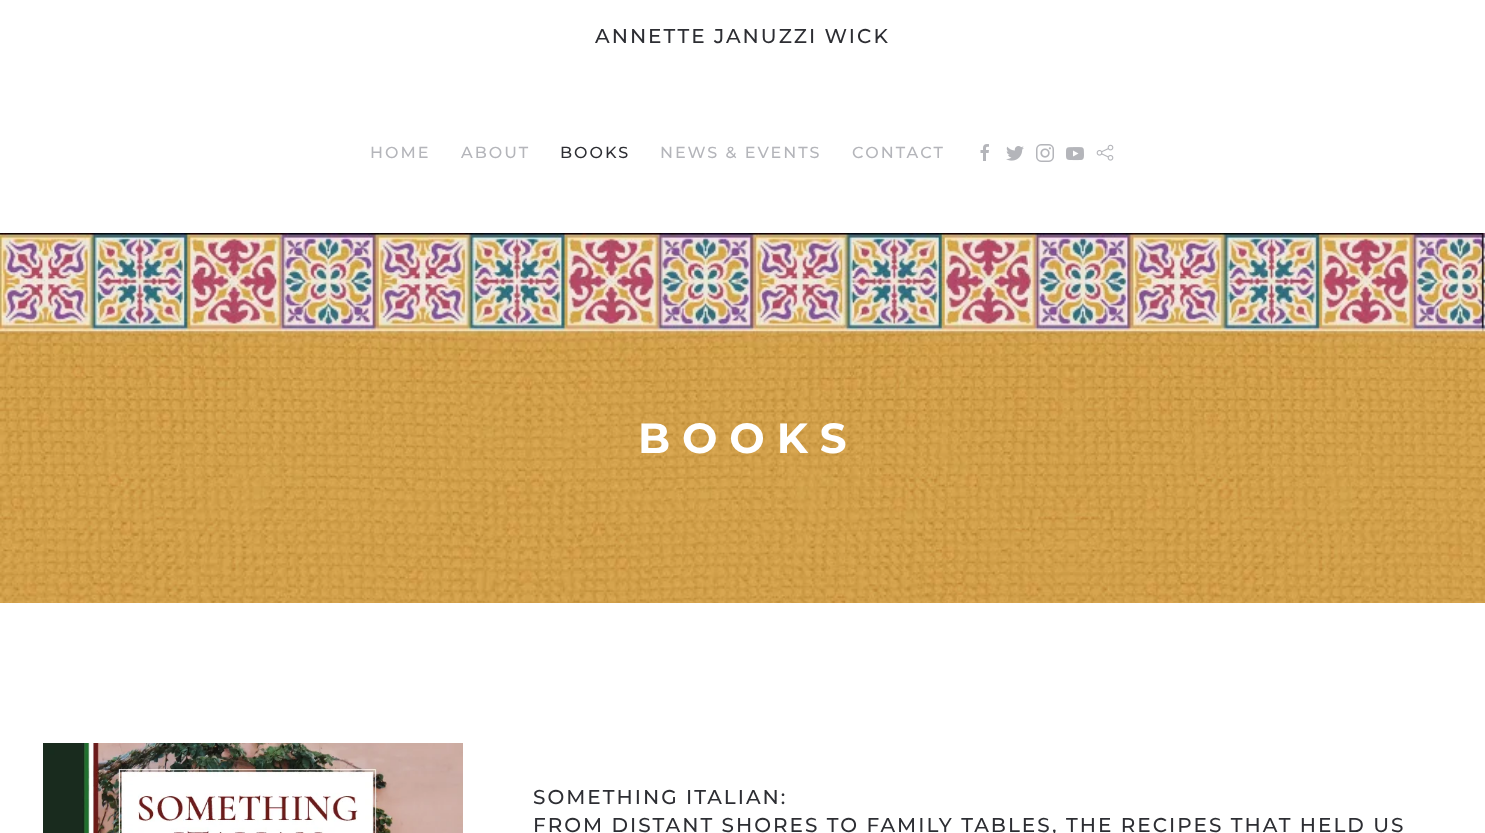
<svg xmlns="http://www.w3.org/2000/svg" width="1485" height="833" viewBox="0 0 1485 833">
  <style>
    .t1 { font: 500 20px Montserrat; letter-spacing: 2px; fill: #2d2e33; }
    .t2 { font: 500 16px Montserrat; letter-spacing: 2px; fill: #b4b5ba; }
    .t3 { font: 500 16px Montserrat; letter-spacing: 2px; fill: #2d2e33; }
    .t4 { font: bold 42px Montserrat; fill: #fff; }
  </style>
  <rect width="100%" height="100%" fill="#fff"/>
  <text x="595" y="43" class="t1">ANNETTE JANUZZI WICK</text>
  <text x="370" y="158" class="t2">HOME</text>
  <text x="461" y="158" class="t2">ABOUT</text>
  <text x="560" y="158" class="t3">BOOKS</text>
  <text x="660" y="158" class="t2">NEWS &amp; EVENTS</text>
  <text x="852" y="158" class="t2">CONTACT</text>
  <image x="980" y="144" width="9" height="17" href="images/1.png"/>
  <image x="1006" y="146" width="18" height="15" href="images/2.png"/>
  <image x="1036" y="144" width="18" height="18" href="images/3.png"/>
  <image x="1066" y="147" width="18" height="14" href="images/4.png"/>
  <image x="1096" y="144" width="18" height="17" href="images/5.png"/>
  <image x="0" y="233" width="1485" height="370" href="images/6.png"/>
  <text x="638" y="453" class="t4">B O O K S</text>
  <image x="43" y="743" width="420" height="90" href="images/7.png"/>
  <text x="533" y="804" class="t1">SOMETHING ITALIAN:</text>
  <text x="533" y="832" class="t1">FROM DISTANT SHORES TO FAMILY TABLES, THE RECIPES THAT HELD US</text>
</svg>
